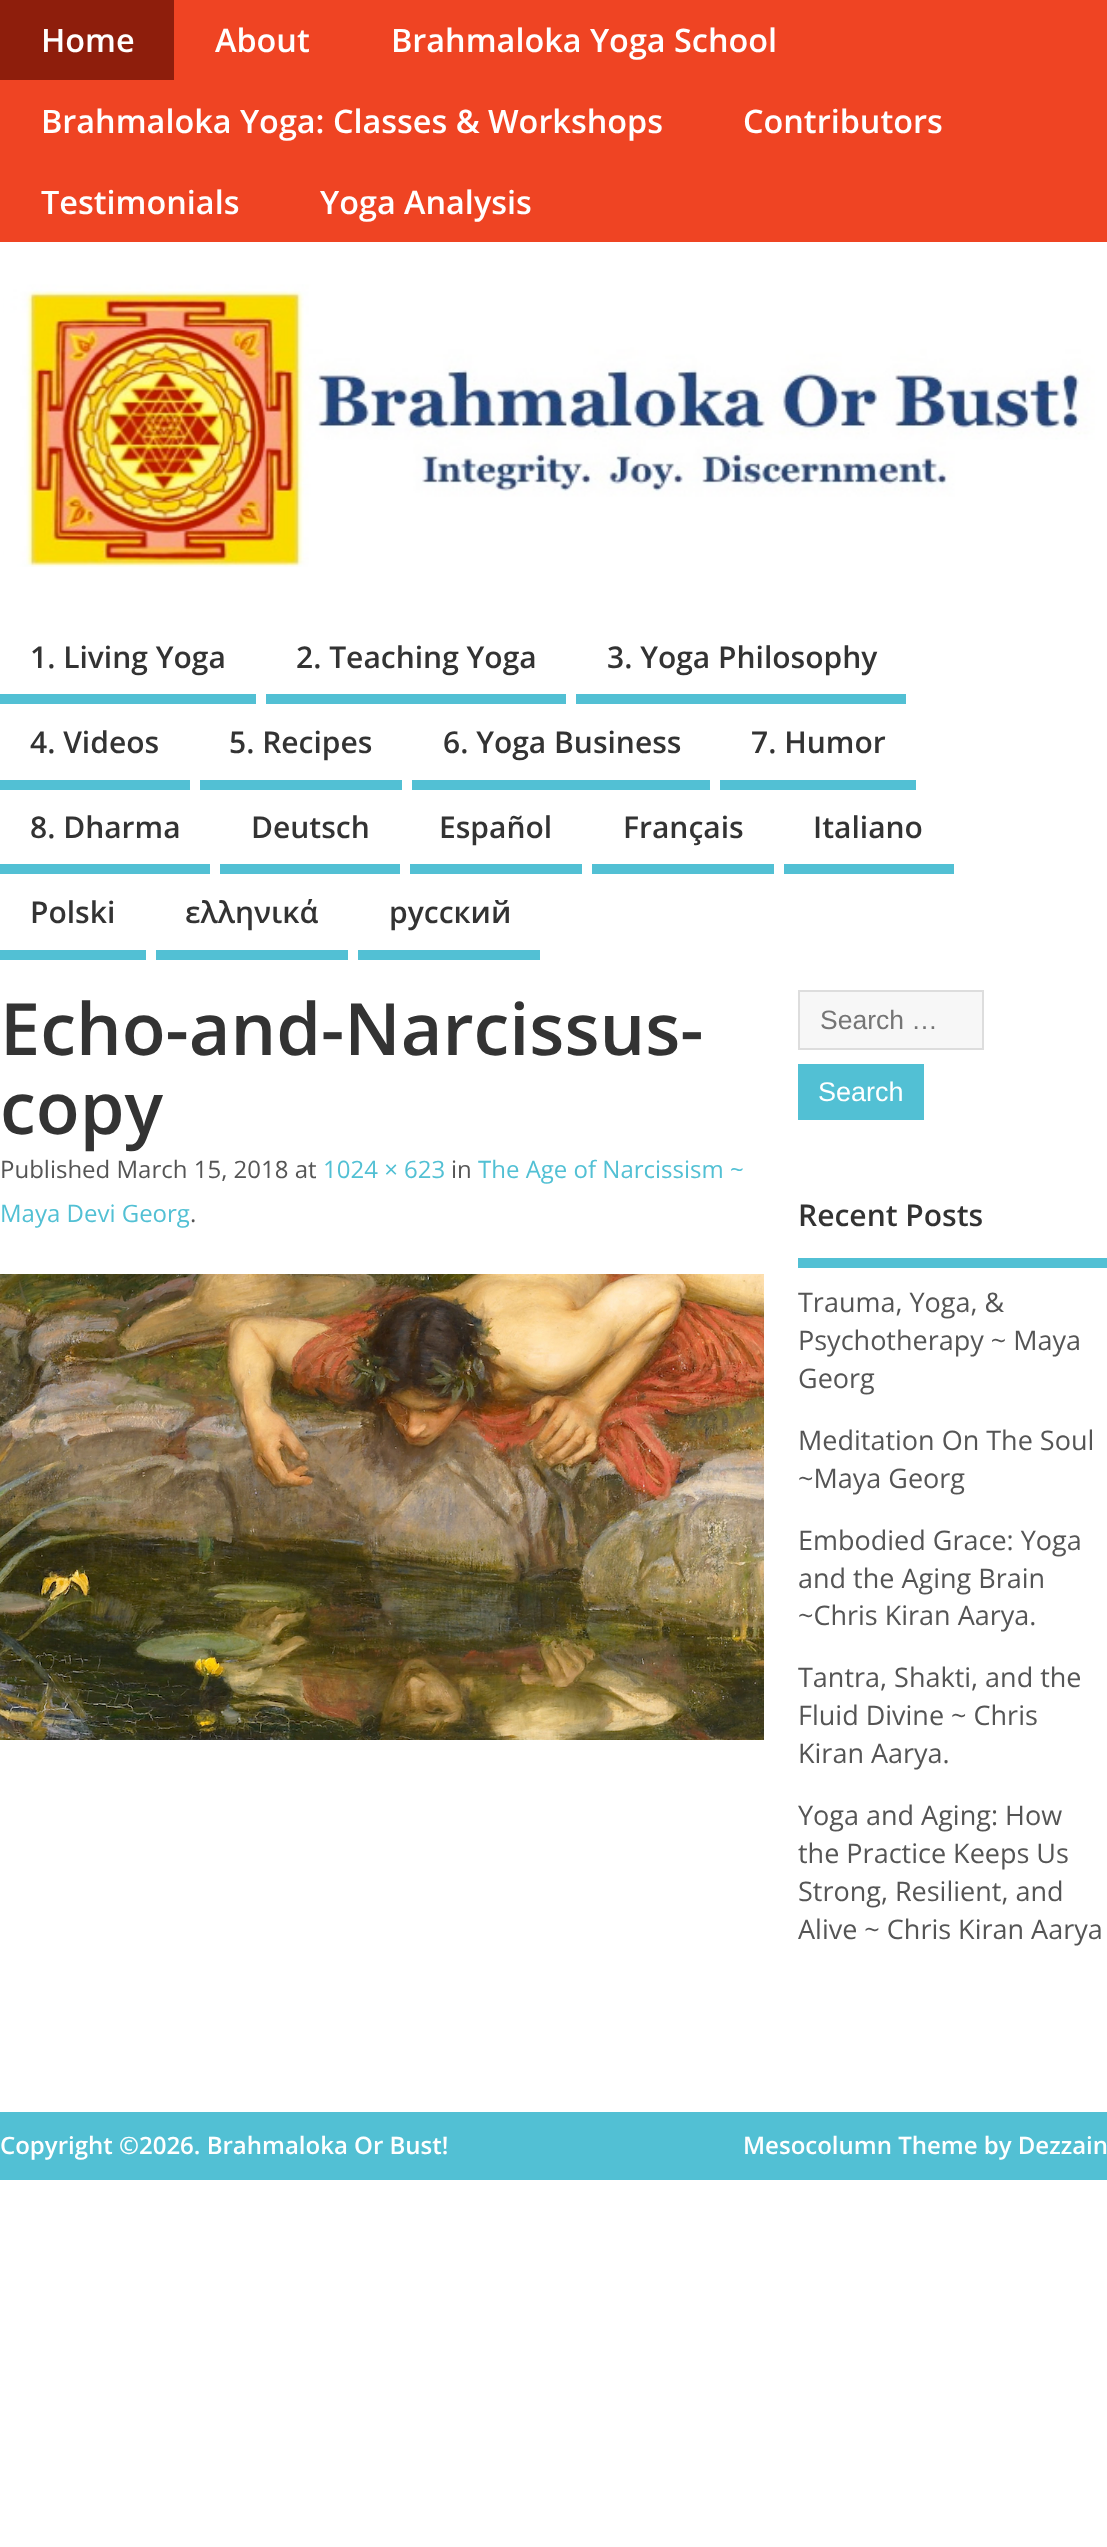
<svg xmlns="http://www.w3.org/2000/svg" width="1107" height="2547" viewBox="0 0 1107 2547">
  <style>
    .t1 { font: 600 32.4px Open Sans; fill: #fff; }
    .t2 { font: 600 30px Open Sans; fill: #333; }
    .t3 { font: 600 72px Open Sans; fill: #333; }
    .t4 { font: 24px Open Sans; fill: #555; }
    .t5 { font: 24px Open Sans; fill: #52c0d4; }
    .t6 { font: 26.5px Liberation Sans; fill: #757575; }
    .t7 { font: 27px Liberation Sans; fill: #fff; }
    .t8 { font: 27px Open Sans; fill: #555; }
    .t9 { font: 600 24px Open Sans; fill: #fff; }
  </style>
  <rect width="100%" height="100%" fill="#fff"/>
  <rect x="0" y="0" width="1107" height="242" fill="#ef4423"/>
  <rect x="0" y="0" width="174" height="80" fill="#8e1e0c"/>
  <text x="41" y="52" class="t1">Home</text>
  <text x="215" y="52" class="t1">About</text>
  <text x="391" y="52" class="t1">Brahmaloka Yoga School</text>
  <text x="41" y="133" class="t1">Brahmaloka Yoga: Classes &amp; Workshops</text>
  <text x="743" y="133" class="t1">Contributors</text>
  <text x="41" y="214" class="t1">Testimonials</text>
  <text x="320" y="214" class="t1">Yoga Analysis</text>
  <image x="3" y="242" width="1102" height="325" href="images/1.png"/>
  <rect x="0" y="694" width="256" height="10" fill="#52c0d4"/>
  <text x="30" y="668" class="t2">1. Living Yoga</text>
  <rect x="266" y="694" width="300" height="10" fill="#52c0d4"/>
  <text x="296" y="668" class="t2">2. Teaching Yoga</text>
  <rect x="576" y="694" width="330" height="10" fill="#52c0d4"/>
  <text x="607" y="668" class="t2">3. Yoga Philosophy</text>
  <rect x="0" y="780" width="190" height="10" fill="#52c0d4"/>
  <text x="30" y="753" class="t2">4. Videos</text>
  <rect x="200" y="780" width="202" height="10" fill="#52c0d4"/>
  <text x="229" y="753" class="t2">5. Recipes</text>
  <rect x="412" y="780" width="298" height="10" fill="#52c0d4"/>
  <text x="443" y="753" class="t2">6. Yoga Business</text>
  <rect x="720" y="780" width="196" height="10" fill="#52c0d4"/>
  <text x="751" y="753" class="t2">7. Humor</text>
  <rect x="0" y="864" width="210" height="10" fill="#52c0d4"/>
  <text x="30" y="838" class="t2">8. Dharma</text>
  <rect x="220" y="864" width="180" height="10" fill="#52c0d4"/>
  <text x="251" y="838" class="t2">Deutsch</text>
  <rect x="410" y="864" width="172" height="10" fill="#52c0d4"/>
  <text x="439" y="838" class="t2">Español</text>
  <rect x="592" y="864" width="182" height="10" fill="#52c0d4"/>
  <text x="623" y="838" class="t2">Français</text>
  <rect x="784" y="864" width="170" height="10" fill="#52c0d4"/>
  <text x="813" y="838" class="t2">Italiano</text>
  <rect x="0" y="950" width="146" height="10" fill="#52c0d4"/>
  <text x="30" y="923" class="t2">Polski</text>
  <rect x="156" y="950" width="192" height="10" fill="#52c0d4"/>
  <text x="185" y="923" class="t2">ελληνικά</text>
  <rect x="358" y="950" width="182" height="10" fill="#52c0d4"/>
  <text x="389" y="923" class="t2">русский</text>
  <text x="0" y="1055" class="t3">Echo-and-Narcissus-</text>
  <text x="0" y="1134" class="t3">copy</text>
  <text x="0" y="1178" class="t4">Published March 15, 2018 at</text>
  <text x="323" y="1178" class="t5">1024 × 623</text>
  <text x="451" y="1178" class="t4">in</text>
  <text x="478" y="1178" class="t5">The Age of Narcissism ~</text>
  <text x="0" y="1222" class="t5">Maya Devi Georg</text>
  <text x="190" y="1222" class="t4">.</text>
  <image x="0" y="1274" width="764" height="466" href="images/2.png"/>
  <rect x="799" y="991" width="184" height="58" fill="#f7f7f7" stroke="#ddd" stroke-width="2"/>
  <text x="820" y="1029" class="t6">Search …</text>
  <rect x="798" y="1064" width="126" height="56" fill="#52c0d4"/>
  <text x="818" y="1101" class="t7">Search</text>
  <rect x="798" y="1258" width="309" height="10" fill="#52c0d4"/>
  <text x="798" y="1226" class="t2">Recent Posts</text>
  <text x="798" y="1312" class="t8">Trauma, Yoga, &amp;</text>
  <text x="798" y="1350" class="t8">Psychotherapy ~ Maya</text>
  <text x="798" y="1388" class="t8">Georg</text>
  <text x="798" y="1450" class="t8">Meditation On The Soul</text>
  <text x="798" y="1488" class="t8">~Maya Georg</text>
  <text x="798" y="1550" class="t8">Embodied Grace: Yoga</text>
  <text x="798" y="1588" class="t8">and the Aging Brain</text>
  <text x="798" y="1625" class="t8">~Chris Kiran Aarya.</text>
  <text x="798" y="1687" class="t8">Tantra, Shakti, and the</text>
  <text x="798" y="1725" class="t8">Fluid Divine ~ Chris</text>
  <text x="798" y="1763" class="t8">Kiran Aarya.</text>
  <text x="798" y="1825" class="t8">Yoga and Aging: How</text>
  <text x="798" y="1863" class="t8">the Practice Keeps Us</text>
  <text x="798" y="1901" class="t8">Strong, Resilient, and</text>
  <text x="798" y="1939" class="t8">Alive ~ Chris Kiran Aarya</text>
  <rect x="0" y="2112" width="1107" height="68" fill="#52c0d4"/>
  <text x="0" y="2154" class="t9">Copyright ©2026. Brahmaloka Or Bust!</text>
  <text x="743" y="2154" class="t9">Mesocolumn Theme by Dezzain</text>
</svg>
